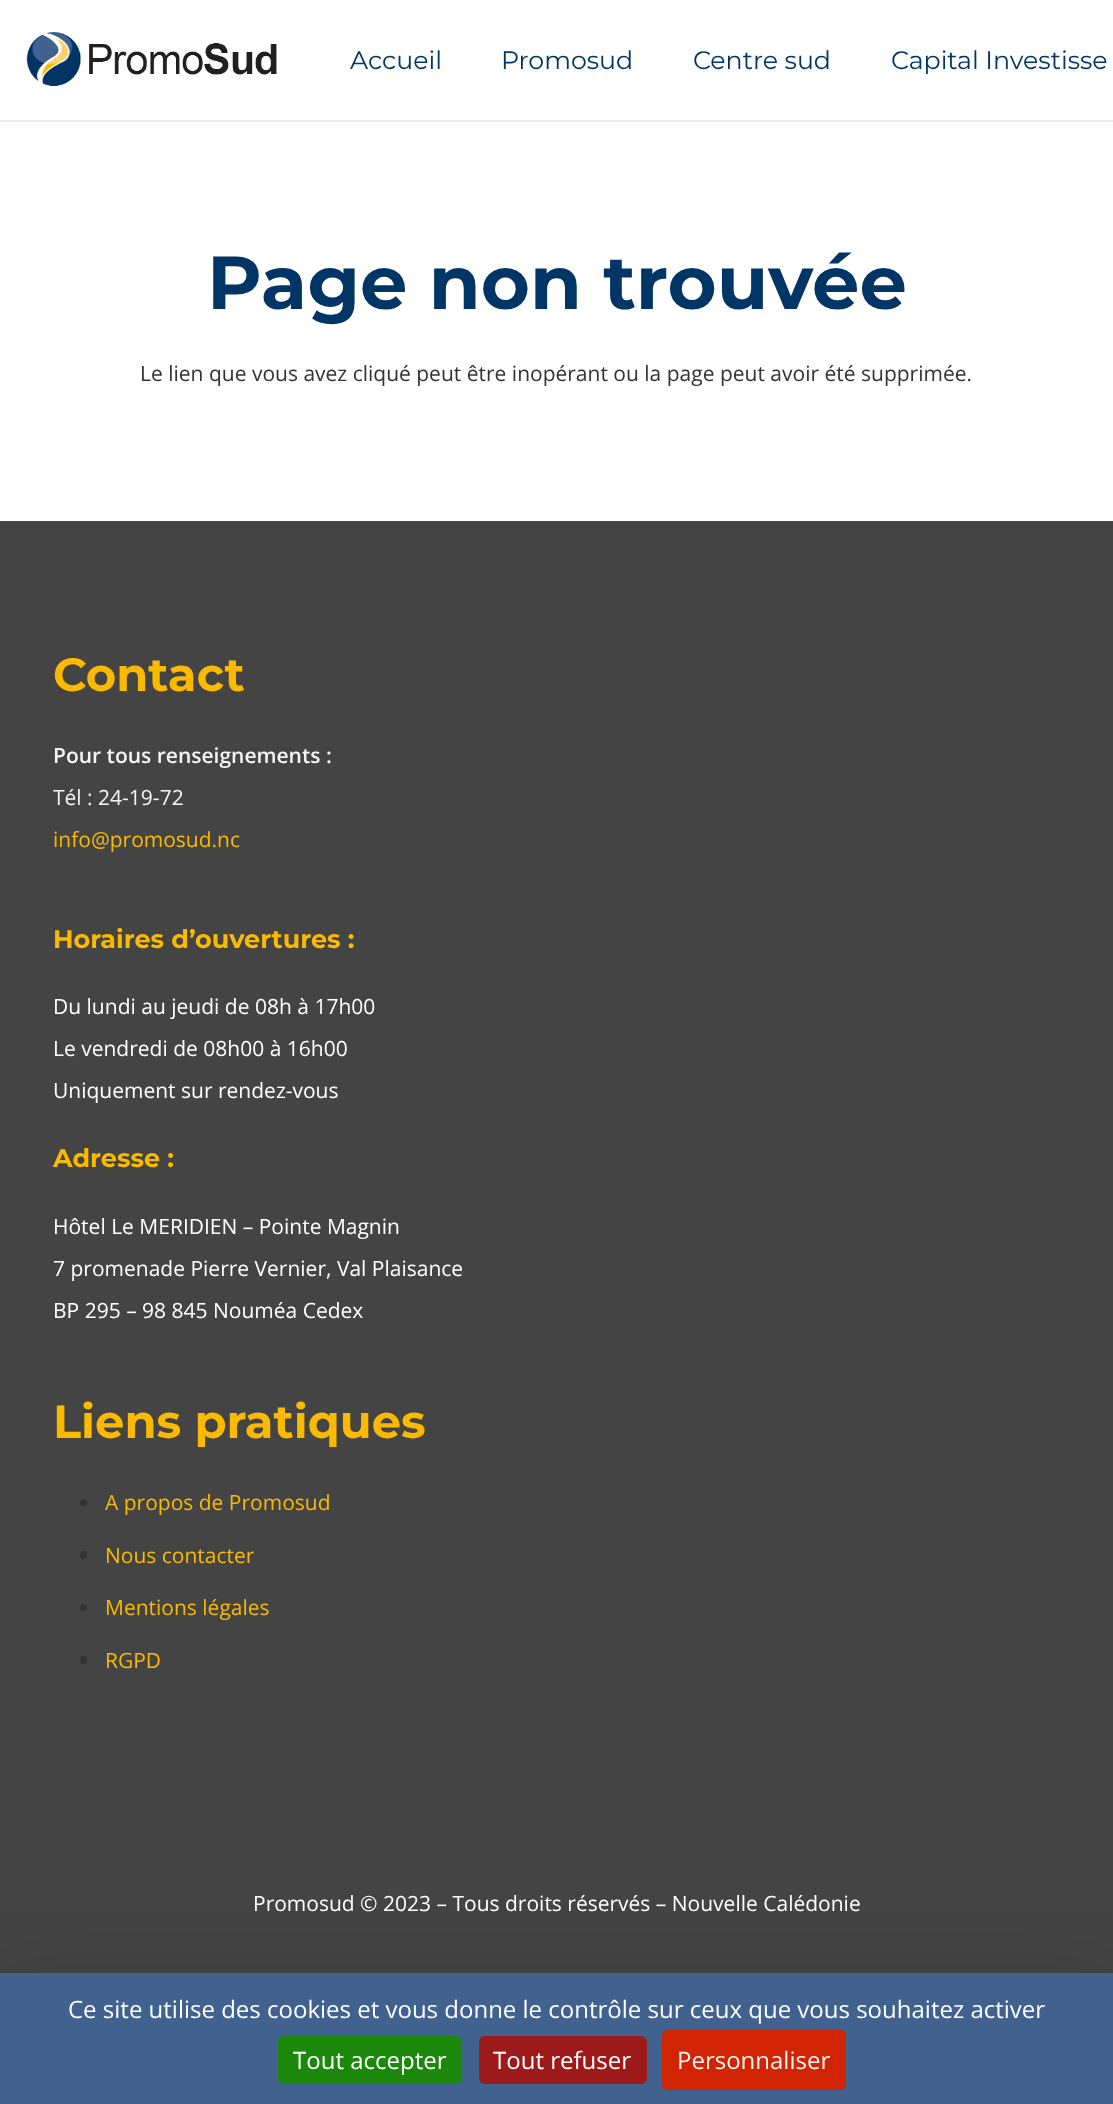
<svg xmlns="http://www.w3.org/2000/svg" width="1113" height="2104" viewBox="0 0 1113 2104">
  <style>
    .t1 { font: 25.25px Montserrat; fill: #003565; }
    .t2 { font: bold 75.1px Montserrat; fill: #003565; }
    .t3 { font: 21px Open Sans; fill: #333; }
    .t4 { font: bold 46.5px Montserrat; fill: #fbb900; }
    .t5 { font: 600 21px Open Sans; fill: #f5f5f5; }
    .t6 { font: 21px Open Sans; fill: #f5f5f5; }
    .t7 { font: 21px Open Sans; fill: #fbb900; }
    .t8 { font: bold 25.5px Montserrat; fill: #fbb900; }
    .t9 { font: 21px Open Sans; fill: #fff; }
    .t10 { font: 24px Open Sans; fill: #fff; }
    .t11 { font: 24px Open Sans; fill: #f5f5f5; }
  </style>
  <rect width="100%" height="100%" fill="#fff"/>
  <rect x="0" y="120" width="1113" height="2" fill="#ebebeb"/>
  <image x="26" y="32" width="251" height="55" href="images/1.png"/>
  <text x="350" y="69" class="t1">Accueil</text>
  <text x="501" y="69" class="t1">Promosud</text>
  <text x="693" y="69" class="t1">Centre sud</text>
  <text x="891" y="69" class="t1">Capital Investisse</text>
  <text x="207" y="309" class="t2">Page non trouvée</text>
  <text x="140" y="381" class="t3">Le lien que vous avez cliqué peut être inopérant ou la page peut avoir été supprimée.</text>
  <rect x="0" y="521" width="1113" height="1452" fill="#444"/>
  <text x="53" y="691" class="t4">Contact</text>
  <text x="53" y="763" class="t5">Pour tous renseignements :</text>
  <text x="53" y="805" class="t6">Tél : 24-19-72</text>
  <text x="53" y="847" class="t7">info@promosud.nc</text>
  <text x="53" y="948" class="t8">Horaires d’ouvertures :</text>
  <text x="53" y="1014" class="t9">Du lundi au jeudi de 08h à 17h00</text>
  <text x="53" y="1056" class="t9">Le vendredi de 08h00 à 16h00</text>
  <text x="53" y="1098" class="t9">Uniquement sur rendez-vous</text>
  <text x="53" y="1167" class="t8">Adresse :</text>
  <text x="53" y="1234" class="t9">Hôtel Le MERIDIEN – Pointe Magnin</text>
  <text x="53" y="1276" class="t9">7 promenade Pierre Vernier, Val Plaisance</text>
  <text x="53" y="1318" class="t9">BP 295 – 98 845 Nouméa Cedex</text>
  <text x="53" y="1438" class="t4">Liens pratiques</text>
  <circle cx="83.5" cy="1502.5" r="3.5" fill="#333"/>
  <text x="105" y="1510" class="t7">A propos de Promosud</text>
  <rect x="80" y="1551" width="7" height="8" rx="3.5" fill="#333"/>
  <text x="105" y="1563" class="t7">Nous contacter</text>
  <circle cx="83.5" cy="1607.5" r="3.5" fill="#333"/>
  <text x="105" y="1615" class="t7">Mentions légales</text>
  <rect x="80" y="1656" width="7" height="8" rx="3.5" fill="#333"/>
  <text x="105" y="1668" class="t7">RGPD</text>
  <text x="253" y="1911" class="t9">Promosud © 2023 – Tous droits réservés – Nouvelle Calédonie</text>
  <rect x="0" y="2003" width="1113" height="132" fill="#00000040" filter="blur(45px)"/>
  <rect x="0" y="1973" width="1113" height="131" fill="#41618e"/>
  <text x="68" y="2018" class="t10">Ce site utilise des cookies et vous donne le contrôle sur ceux que vous souhaitez activer</text>
  <rect x="278" y="2036" width="184" height="48" rx="6" fill="#1b870b"/>
  <text x="293" y="2069" class="t10">Tout accepter</text>
  <rect x="479" y="2036" width="168" height="48" rx="6" fill="#9c1a1a"/>
  <text x="493" y="2069" class="t10">Tout refuser</text>
  <rect x="662" y="2030" width="184" height="60" rx="6" fill="#d02402"/>
  <text x="677" y="2069" class="t11">Personnaliser</text>
</svg>
